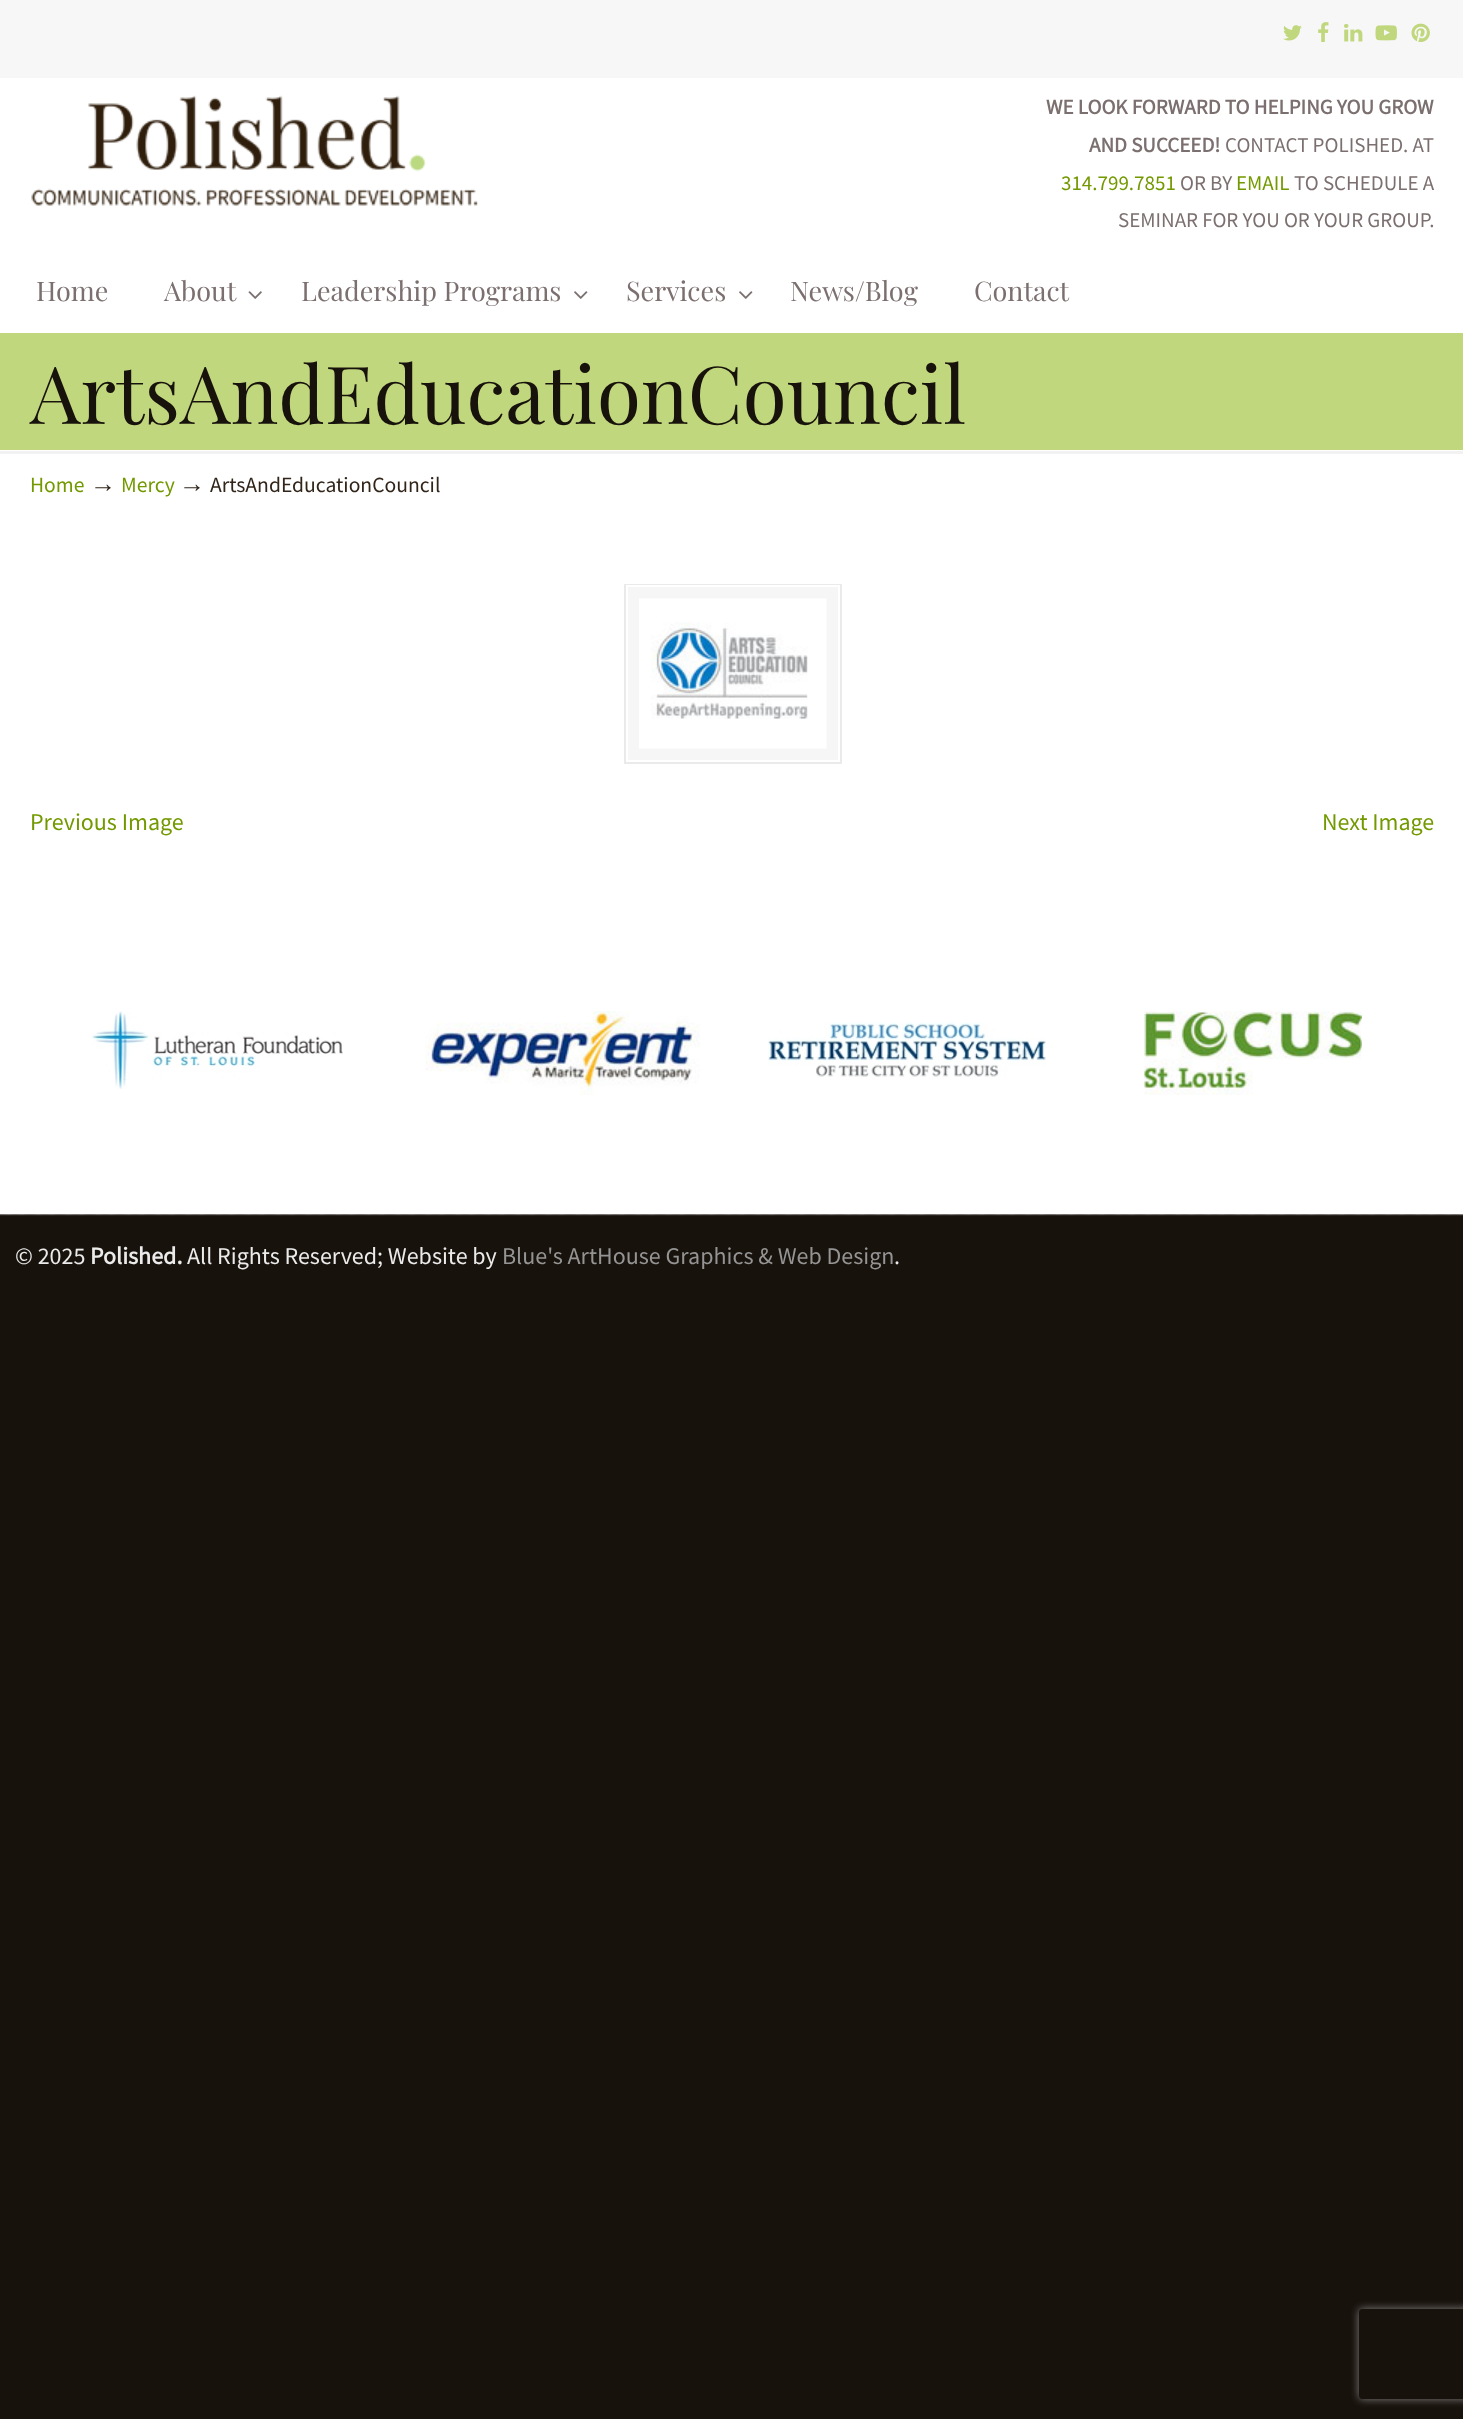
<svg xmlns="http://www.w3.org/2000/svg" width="1463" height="2419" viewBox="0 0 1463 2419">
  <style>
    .t1 { font: bold 21px Source Sans Pro; fill: #7b706f; }
    .t2 { font: 21px Source Sans Pro; fill: #7b706f; }
    .t3 { font: 21px Source Sans Pro; fill: #739900; }
    .t4 { font: 27px Playfair Display; fill: #7b706f; }
    .t5 { font: 80px Playfair Display; fill: #18120c; }
    .t6 { font: 21.6px Source Sans Pro; fill: #739900; }
    .t7 { font: 26px Liberation Serif; fill: #312419; }
    .t8 { font: 21.6px Source Sans Pro; fill: #312419; }
    .t9 { font: 24px Source Sans Pro; fill: #739900; }
    .t10 { font: 24px Source Sans Pro; fill: #ebebeb; }
    .t11 { font: bold 24px Source Sans Pro; fill: #ebebeb; }
    .t12 { font: 24px Source Sans Pro; fill: #949494; }
  </style>
  <defs>
    <clipPath id="clip1"><path d="M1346 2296H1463V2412H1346ZM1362 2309H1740C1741.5 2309 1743 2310.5 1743 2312V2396C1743 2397.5 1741.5 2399 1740 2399H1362C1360.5 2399 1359 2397.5 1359 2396V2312C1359 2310.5 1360.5 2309 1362 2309Z" clip-rule="evenodd"/></clipPath>
  </defs>
  <rect width="100%" height="100%" fill="#18120c"/>
  <rect x="0" y="78" width="1463" height="255" fill="#fff"/>
  <rect x="0" y="0" width="1463" height="78" fill="#f7f7f7"/>
  <image x="1283" y="25" width="19" height="16" href="images/1.png"/>
  <image x="1318" y="22" width="11" height="20" href="images/2.png"/>
  <image x="1344" y="23" width="19" height="19" href="images/3.png"/>
  <image x="1375" y="25" width="22" height="16" href="images/4.png"/>
  <image x="1411" y="23" width="19" height="19" href="images/5.png"/>
  <image x="31" y="95" width="447" height="111" href="images/6.png"/>
  <text x="1046" y="114" class="t1">WE LOOK FORWARD TO HELPING YOU GROW</text>
  <text x="1089" y="152" class="t1">AND SUCCEED!</text>
  <text x="1225" y="152" class="t2">CONTACT POLISHED. AT</text>
  <text x="1061" y="190" class="t3">314.799.7851</text>
  <text x="1180" y="190" class="t2">OR BY</text>
  <text x="1236" y="190" class="t3">EMAIL</text>
  <text x="1294" y="190" class="t2">TO SCHEDULE A</text>
  <text x="1118" y="227" class="t2">SEMINAR FOR YOU OR YOUR GROUP.</text>
  <text x="36" y="301" class="t4">Home</text>
  <text x="164" y="301" class="t4">About</text>
  <image x="248" y="291" width="14" height="8" href="images/7.png"/>
  <text x="301" y="301" class="t4">Leadership Programs</text>
  <image x="574" y="291" width="14" height="8" href="images/8.png"/>
  <text x="626" y="301" class="t4">Services</text>
  <image x="739" y="291" width="14" height="8" href="images/8.png"/>
  <text x="790" y="301" class="t4">News/Blog</text>
  <text x="974" y="301" class="t4">Contact</text>
  <rect x="0" y="333" width="1463" height="117" fill="#c0d77d"/>
  <text x="30" y="424" class="t5">ArtsAndEducationCouncil</text>
  <rect x="0" y="450" width="1463" height="764" fill="#fff"/>
  <rect x="0" y="451" width="1463" height="3" fill="#f2f2f2"/>
  <text x="30" y="492" class="t6">Home</text>
  <text x="90" y="492" class="t7">→</text>
  <text x="121" y="492" class="t6">Mercy</text>
  <text x="179" y="492" class="t7">→</text>
  <text x="210" y="492" class="t8">ArtsAndEducationCouncil</text>
  <rect x="628" y="587" width="210" height="173" fill="#f6f6f6"/>
  <rect x="625" y="585" width="216" height="178" fill="none" stroke="#eaeaea" stroke-width="2"/>
  <rect x="627" y="586" width="212" height="175" fill="none" stroke="#fff" stroke-width="2"/>
  <image x="639" y="598" width="188" height="151" href="images/9.png"/>
  <text x="30" y="830" class="t9">Previous Image</text>
  <text x="1322" y="830" class="t9">Next Image</text>
  <image x="92" y="1011" width="251" height="78" href="images/10.png"/>
  <image x="425" y="1011" width="275" height="84" href="images/11.png"/>
  <image x="768" y="1022" width="278" height="55" href="images/12.png"/>
  <image x="1144" y="1011" width="218" height="84" href="images/13.png"/>
  <image x="0" y="1214" width="1463" height="2" href="images/14.png"/>
  <text x="15" y="1264" class="t10">© 2025</text>
  <text x="90" y="1264" class="t11">Polished.</text>
  <text x="187" y="1264" class="t10">All Rights Reserved; Website by</text>
  <text x="502" y="1264" class="t12">Blue's ArtHouse Graphics &amp; Web Design</text>
  <text x="894" y="1264" class="t10">.</text>
  <g clip-path="url(#clip1)">
    <rect x="1359" y="2309" width="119" height="90" rx="3" fill="#808080" filter="blur(4px)"/>
  </g>
</svg>
